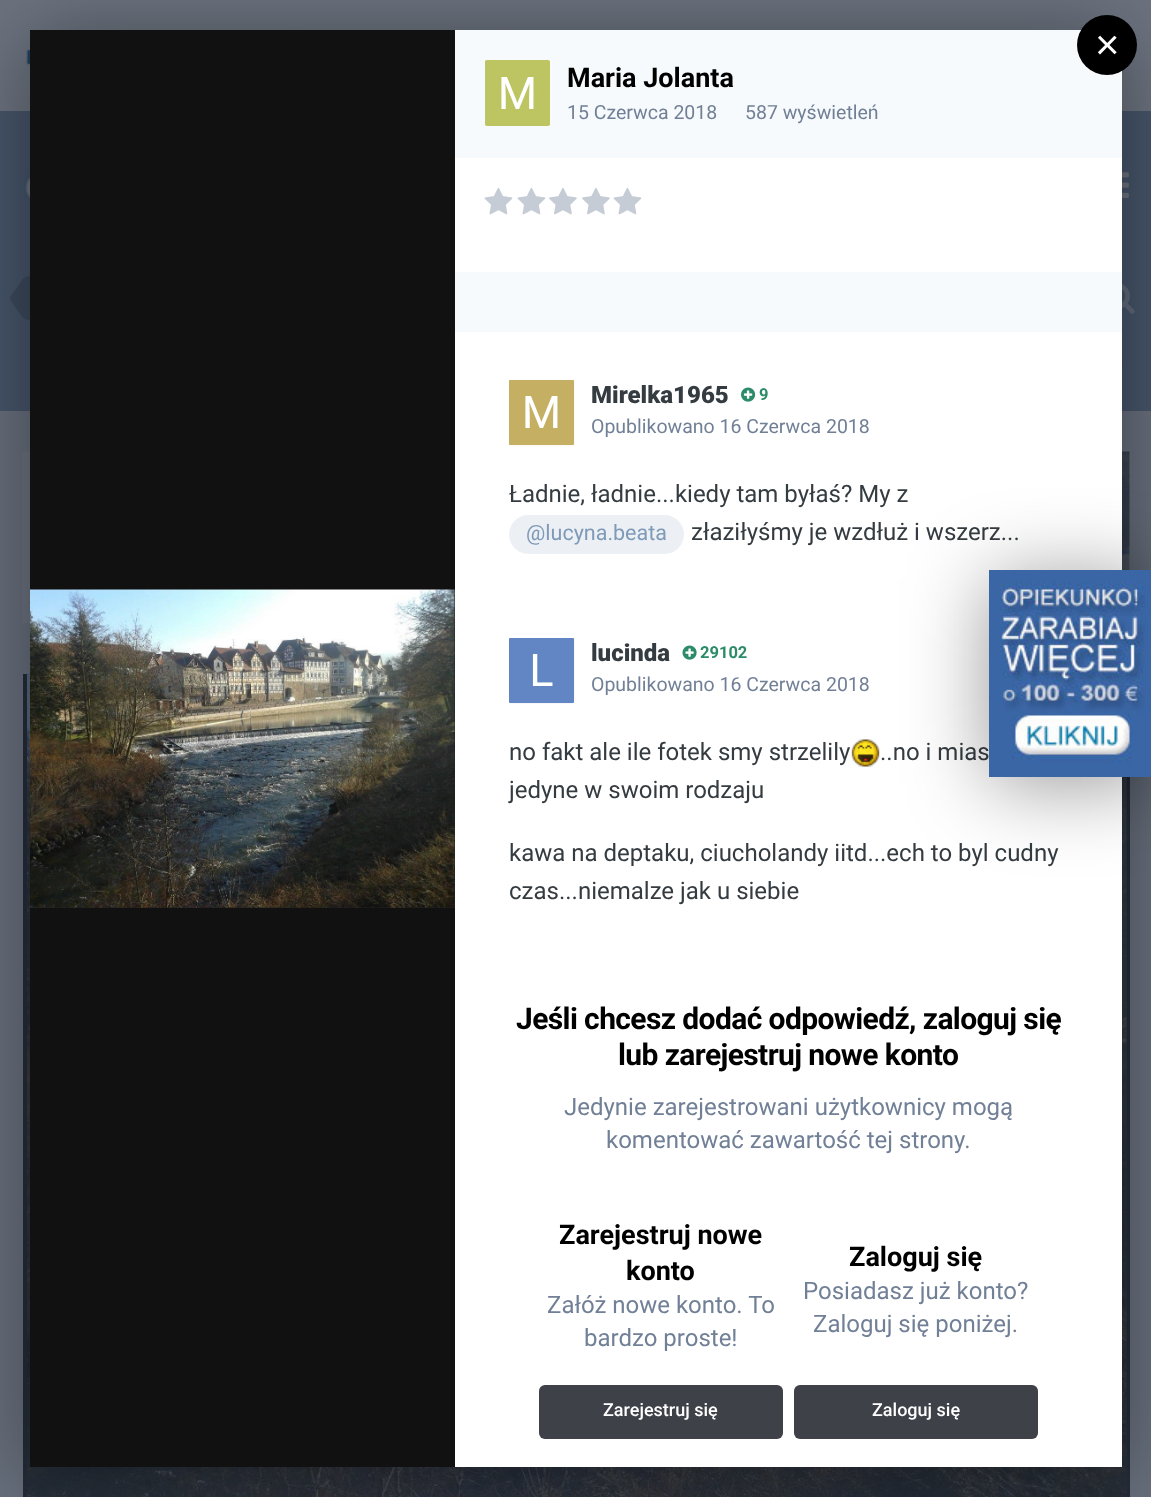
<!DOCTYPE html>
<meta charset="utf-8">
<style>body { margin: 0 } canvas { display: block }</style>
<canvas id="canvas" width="1151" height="1497"></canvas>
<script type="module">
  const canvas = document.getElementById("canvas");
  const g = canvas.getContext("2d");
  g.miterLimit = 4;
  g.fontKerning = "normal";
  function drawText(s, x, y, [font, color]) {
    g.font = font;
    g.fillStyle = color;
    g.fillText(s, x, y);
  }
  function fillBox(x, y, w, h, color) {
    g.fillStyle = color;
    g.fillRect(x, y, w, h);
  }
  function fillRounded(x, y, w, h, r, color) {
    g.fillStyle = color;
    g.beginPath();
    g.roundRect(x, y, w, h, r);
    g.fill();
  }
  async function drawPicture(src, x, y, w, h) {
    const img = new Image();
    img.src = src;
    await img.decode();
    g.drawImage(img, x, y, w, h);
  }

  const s1 = ["42px Liberation Sans", "#FFFFFF"];
  const s2 = ["bold 27px Roboto", "#000000"];
  const s3 = ["19.5px Roboto", "#718096"];
  const s4 = ["900 24px Roboto", "#353C41"];
  const s5 = ["bold 16.5px Roboto", "#2C8C69"];
  const s6 = ["24px Roboto", "#353C41"];
  const s7 = ["21.5px Roboto", "#7F9AB8"];
  const s8 = ["bold 30px Roboto", "#000000"];
  const s9 = ["24px Roboto", "#718096"];
  const s10 = ["500 18px Roboto", "#FFFFFF"];

  fillBox(0, 0, 1151, 1497, "#676F7C");
  fillBox(0, 0, 1151, 111, "#6C737F");
  await drawPicture("pic1.png", 0, 18, 1151, 75);
  fillBox(0, 111, 1151, 300, "#46556A");
  await drawPicture("pic11.png", 24, 171, 6, 34);
  await drawPicture("pic12.png", 1122, 172, 7, 26);
  g.fillStyle = "#3C495C";
  g.beginPath();
  g.moveTo(10.5, 300);
  g.lineTo(10.5, 298);
  g.lineTo(30, 298);
  g.lineTo(30, 320);
  g.bezierCurveTo(27, 320, 23.5, 318.5, 21, 315.5);
  g.closePath();
  g.moveTo(30, 276);
  g.lineTo(30, 298);
  g.lineTo(10.5, 298);
  g.lineTo(10.5, 296.5);
  g.lineTo(22.5, 279.5);
  g.bezierCurveTo(24.5, 277, 27.5, 276, 30, 276);
  g.closePath();
  g.fill();
  await drawPicture("pic13.png", 1122, 284, 13, 30);
  await drawPicture("pic14.png", 1122, 357, 1, 17);
  fillBox(23, 452, 1107, 171, "#6A727E");
  await drawPicture("pic15.png", 22, 451, 1108, 172);
  fillBox(23, 674, 1107, 823, "#252C38");
  fillBox(1126, 777, 1, 720, "#2A313D");
  await drawPicture("pic16.png", 27, 673, 1100, 824);
  g.fillStyle = "rgba(0, 0, 0, 0.4)";
  g.filter = "blur(41px)";
  g.beginPath();
  g.rect(30, 38, 1092, 1437);
  g.fill();
  g.filter = "none";
  fillBox(455, 30, 667, 128, "#F7FAFC");
  g.fillStyle = "#000000";
  g.beginPath();
  g.arc(1107, 45, 30, 0, Math.PI * 2);
  g.fill();
  drawText("×", 1095, 59, s1);
  fillBox(30, 30, 425, 1437, "#111111");
  fillBox(30, 590, 425, 318, "#222222");
  await drawPicture("pic2.png", 30, 589, 425, 319);
  fillBox(455, 158, 667, 1309, "#FFFFFF");
  fillRounded(485, 60, 66, 66, 3, "#FFFFFF");
  await drawPicture("pic3.png", 485, 60, 66, 66);
  drawText("Maria Jolanta", 567, 87, s2);
  drawText("15 Czerwca 2018", 567, 119, s3);
  drawText("587 wyświetleń", 745, 119, s3);
  await drawPicture("pic4.png", 484, 187, 29, 28);
  await drawPicture("pic4.png", 517, 187, 29, 28);
  await drawPicture("pic5.png", 549, 188, 28, 27);
  await drawPicture("pic5.png", 582, 188, 28, 27);
  await drawPicture("pic4.png", 613, 187, 29, 28);
  fillBox(455, 272, 667, 60, "#F7FAFC");
  await drawPicture("pic6.png", 509, 380, 66, 66);
  drawText("Mirelka1965", 591, 403, s4);
  await drawPicture("pic7.png", 741, 387, 15, 15);
  drawText("9", 759, 400, s5);
  drawText("Opublikowano 16 Czerwca 2018", 591, 433, s3);
  drawText("Ładnie, ładnie...kiedy tam byłaś? My z", 509, 502, s6);
  fillRounded(509, 515, 175, 39, 19.5, "#ECF0F4");
  drawText("@lucyna.beata", 526, 540, s7);
  drawText("złaziłyśmy je wzdłuż i wszerz...", 691, 540, s6);
  await drawPicture("pic8.png", 509, 638, 66, 66);
  drawText("lucinda", 591, 661, s4);
  await drawPicture("pic9.png", 682, 645, 15, 15);
  drawText("29102", 700, 658, s5);
  drawText("Opublikowano 16 Czerwca 2018", 591, 691, s3);
  drawText("no fakt ale ile fotek smy strzelily", 509, 760, s6);
  await drawPicture("pic10.png", 851, 739, 29, 28);
  drawText("..no i mias", 880, 760, s6);
  drawText("jedyne w swoim rodzaju", 509, 798, s6);
  drawText("kawa na deptaku, ciucholandy iitd...ech to byl cudny", 509, 861, s6);
  drawText("czas...niemalze jak u siebie", 509, 899, s6);
  g.letterSpacing = "-0.6px";
  drawText("Jeśli chcesz dodać odpowiedź, zaloguj się", 516, 1029, s8);
  drawText("lub zarejestruj nowe konto", 618, 1065, s8);
  g.letterSpacing = "0px";
  drawText("Jedynie zarejestrowani użytkownicy mogą", 564, 1115, s9);
  drawText("komentować zawartość tej strony.", 606, 1148, s9);
  drawText("Zarejestruj nowe", 559, 1244, s2);
  drawText("konto", 626, 1280, s2);
  drawText("Załóż nowe konto. To", 547, 1313, s9);
  drawText("bardzo proste!", 584, 1346, s9);
  fillRounded(539, 1385, 244, 54, 6, "#3E4148");
  drawText("Zarejestruj się", 603, 1416, s10);
  drawText("Zaloguj się", 849, 1266, s2);
  drawText("Posiadasz już konto?", 803, 1299, s9);
  drawText("Zaloguj się poniżej.", 813, 1332, s9);
  fillRounded(794, 1385, 244, 54, 6, "#3E4148");
  drawText("Zaloguj się", 872, 1416, s10);
  g.fillStyle = "rgba(0, 0, 0, 0.4)";
  g.filter = "blur(41px)";
  g.beginPath();
  g.roundRect(989, 578, 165, 207, 5);
  g.fill();
  g.filter = "none";
  await drawPicture("pic17.png", 989, 570, 162, 207);
</script>
